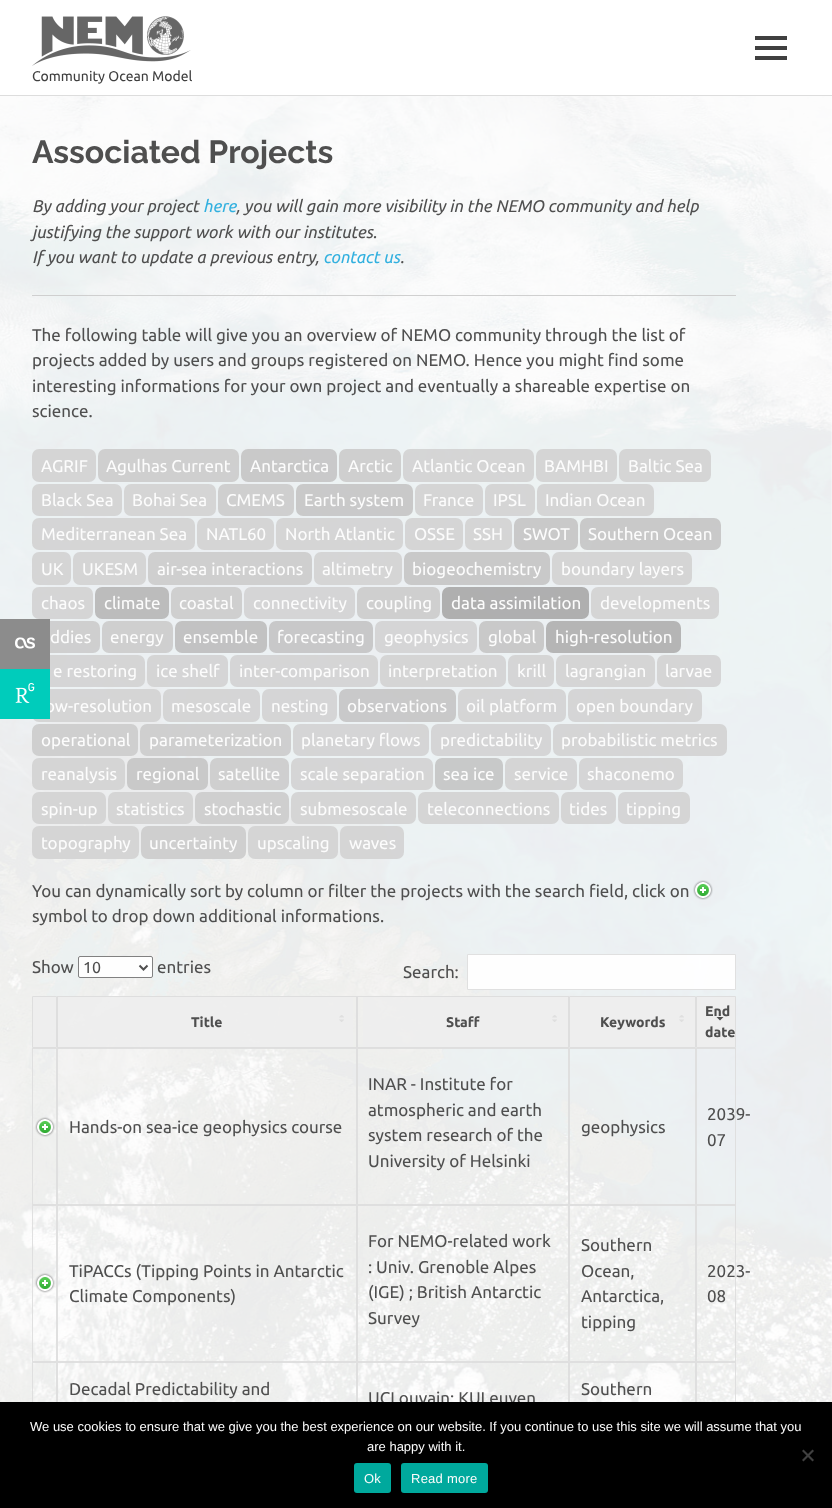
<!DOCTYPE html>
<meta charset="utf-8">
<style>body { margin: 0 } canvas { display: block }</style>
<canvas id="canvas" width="832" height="1508"></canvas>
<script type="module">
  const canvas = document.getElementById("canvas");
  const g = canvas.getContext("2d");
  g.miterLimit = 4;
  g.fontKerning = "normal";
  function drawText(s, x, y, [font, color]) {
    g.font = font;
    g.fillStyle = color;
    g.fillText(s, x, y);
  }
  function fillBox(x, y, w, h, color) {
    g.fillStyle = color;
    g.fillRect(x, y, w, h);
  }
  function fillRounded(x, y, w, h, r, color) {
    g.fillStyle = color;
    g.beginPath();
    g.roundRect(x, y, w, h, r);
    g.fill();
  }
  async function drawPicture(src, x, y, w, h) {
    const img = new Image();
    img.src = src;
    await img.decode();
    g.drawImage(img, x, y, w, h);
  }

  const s1 = ["17px Ubuntu", "#FCFCFC"];
  const s2 = ["14px Ubuntu", "#404040"];
  const s3 = ["bold 32px Raleway", "#4F4F4F"];
  const s4 = ["italic 17px Ubuntu", "#4F4F4F"];
  const s5 = ["italic 17px Ubuntu", "#32B0DF"];
  const s6 = ["17px Ubuntu", "#4F4F4F"];
  const s7 = ["16px Ubuntu", "#4F4F4F"];
  const s8 = ["bold 14px Ubuntu", "#4F4F4F"];
  const s9 = ["13px Liberation Sans", "#FCFCFC"];

  fillBox(0, 0, 832, 1508, "#FFFFFF");
  await drawPicture("pic1.png", 0, 96, 832, 1306);
  fillRounded(32, 621, 68, 32, 7, "rgba(204, 204, 204, 0.92)");
  fillRounded(32, 655, 113, 32, 7, "rgba(211, 211, 211, 0.92)");
  fillBox(0, 619, 50, 50, "#8C8C8C");
  await drawPicture("pic2.png", 15, 637, 20, 12);
  fillRounded(32, 689, 129, 33, 7, "rgba(211, 211, 211, 0.92)");
  drawText("ow-resolution", 45, 712, s1);
  fillBox(0, 669, 50, 50, "#00CCBB");
  await drawPicture("pic3.png", 15, 683, 20, 20);
  fillBox(0, 95, 832, 1, "#DDDDDD");
  await drawPicture("pic4.png", 755, 36, 32, 24);
  await drawPicture("pic5.png", 32, 16, 159, 50);
  drawText("Community Ocean Model", 32, 81, s2);
  drawText("Associated Projects", 32, 163, s3);
  drawText("By adding your project", 32, 212, s4);
  drawText("here", 203, 212, s5);
  drawText(", you will gain more visibility in the NEMO community and help", 236, 212, s4);
  drawText("justifying the support work with our institutes.", 32, 238, s4);
  drawText("If you want to update a previous entry,", 32, 263, s4);
  drawText("contact us", 323, 263, s5);
  drawText(".", 400, 263, s4);
  fillBox(32, 295, 704, 1, "rgba(204, 204, 204, 0.92)");
  drawText("The following table will give you an overview of NEMO community through the list of", 32, 341, s6);
  drawText("projects added by users and groups registered on NEMO. Hence you might find some", 32, 366, s6);
  drawText("interesting informations for your own project and eventually a shareable expertise on", 32, 392, s6);
  drawText("science.", 32, 417, s6);
  fillRounded(32, 449, 64, 33, 7, "rgba(211, 211, 211, 0.92)");
  drawText("AGRIF", 41, 472, s1);
  fillRounded(98, 449, 141, 33, 7, "rgba(204, 204, 204, 0.92)");
  drawText("Agulhas Current", 106, 472, s1);
  fillRounded(241, 449, 96, 33, 7, "rgba(197, 197, 197, 0.92)");
  drawText("Antarctica", 250, 472, s1);
  fillRounded(339, 449, 62, 33, 7, "#CFCFCF");
  drawText("Arctic", 348, 472, s1);
  fillRounded(403, 449, 131, 33, 7, "rgba(211, 211, 211, 0.92)");
  drawText("Atlantic Ocean", 412, 472, s1);
  fillRounded(536, 449, 81, 33, 7, "rgba(211, 211, 211, 0.92)");
  drawText("BAMHBI", 544, 472, s1);
  fillRounded(619, 449, 92, 33, 7, "rgba(211, 211, 211, 0.92)");
  drawText("Baltic Sea", 628, 472, s1);
  fillRounded(32, 484, 90, 32, 7, "rgba(211, 211, 211, 0.92)");
  drawText("Black Sea", 41, 506, s1);
  fillRounded(124, 484, 92, 32, 7, "rgba(211, 211, 211, 0.92)");
  drawText("Bohai Sea", 132, 506, s1);
  fillRounded(218, 484, 76, 32, 7, "rgba(204, 204, 204, 0.92)");
  drawText("CMEMS", 226, 506, s1);
  fillRounded(296, 484, 117, 32, 7, "rgba(197, 197, 197, 0.92)");
  drawText("Earth system", 304, 506, s1);
  fillRounded(415, 484, 68, 32, 7, "rgba(211, 211, 211, 0.92)");
  drawText("France", 423, 506, s1);
  fillRounded(485, 484, 50, 32, 7, "rgba(211, 211, 211, 0.92)");
  drawText("IPSL", 493, 506, s1);
  fillRounded(537, 484, 117, 32, 7, "rgba(211, 211, 211, 0.92)");
  drawText("Indian Ocean", 545, 506, s1);
  fillRounded(32, 518, 163, 32, 7, "rgba(211, 211, 211, 0.92)");
  drawText("Mediterranean Sea", 41, 540, s1);
  fillRounded(197, 518, 77, 32, 7, "rgba(211, 211, 211, 0.92)");
  drawText("NATL60", 206, 540, s1);
  fillRounded(276, 518, 127, 32, 7, "rgba(211, 211, 211, 0.92)");
  drawText("North Atlantic", 285, 540, s1);
  fillRounded(405, 518, 58, 32, 7, "rgba(211, 211, 211, 0.92)");
  drawText("OSSE", 414, 540, s1);
  fillRounded(465, 518, 47, 32, 7, "rgba(211, 211, 211, 0.92)");
  drawText("SSH", 473, 540, s1);
  fillRounded(514, 518, 64, 32, 7, "rgba(197, 197, 197, 0.92)");
  drawText("SWOT", 523, 540, s1);
  fillRounded(580, 518, 141, 32, 7, "rgba(197, 197, 197, 0.92)");
  drawText("Southern Ocean", 588, 540, s1);
  fillRounded(32, 552, 39, 33, 7, "rgba(211, 211, 211, 0.92)");
  drawText("UK", 41, 575, s1);
  fillRounded(73, 552, 73, 33, 7, "rgba(211, 211, 211, 0.92)");
  drawText("UKESM", 82, 575, s1);
  fillRounded(148, 552, 164, 33, 7, "rgba(204, 204, 204, 0.92)");
  drawText("air-sea interactions", 157, 575, s1);
  fillRounded(314, 552, 88, 33, 7, "rgba(211, 211, 211, 0.92)");
  drawText("altimetry", 322, 575, s1);
  fillRounded(404, 552, 146, 33, 7, "rgba(197, 197, 197, 0.92)");
  drawText("biogeochemistry", 412, 575, s1);
  fillRounded(552, 552, 140, 33, 7, "rgba(211, 211, 211, 0.92)");
  drawText("boundary layers", 561, 575, s1);
  fillRounded(32, 587, 61, 32, 7, "rgba(211, 211, 211, 0.92)");
  drawText("chaos", 41, 609, s1);
  fillRounded(95, 587, 74, 32, 7, "rgba(183, 183, 183, 0.92)");
  drawText("climate", 104, 609, s1);
  fillRounded(171, 587, 71, 32, 7, "#CFCFCF");
  drawText("coastal", 179, 609, s1);
  fillRounded(244, 587, 111, 32, 7, "#D5D5D6");
  drawText("connectivity", 253, 609, s1);
  fillRounded(357, 587, 83, 32, 7, "#CFCFCF");
  drawText("coupling", 366, 609, s1);
  fillRounded(442, 587, 147, 32, 7, "rgba(169, 169, 169, 0.92)");
  drawText("data assimilation", 451, 609, s1);
  fillRounded(591, 587, 128, 32, 7, "rgba(211, 211, 211, 0.92)");
  drawText("developments", 600, 609, s1);
  drawText("ddies", 50, 643, s1);
  fillRounded(102, 621, 71, 32, 7, "rgba(204, 204, 204, 0.92)");
  drawText("energy", 110, 643, s1);
  fillRounded(175, 621, 92, 32, 7, "rgba(190, 190, 190, 0.92)");
  drawText("ensemble", 183, 643, s1);
  fillRounded(269, 621, 104, 32, 7, "#C8C8C9");
  drawText("forecasting", 277, 643, s1);
  fillRounded(375, 621, 102, 32, 7, "#D5D5D6");
  drawText("geophysics", 384, 643, s1);
  fillRounded(479, 621, 65, 32, 7, "rgba(197, 197, 197, 0.92)");
  drawText("global", 488, 643, s1);
  fillRounded(546, 621, 135, 32, 7, "rgba(176, 176, 176, 0.92)");
  drawText("high-resolution", 555, 643, s1);
  drawText("e restoring", 53, 677, s1);
  fillRounded(147, 655, 81, 32, 7, "rgba(211, 211, 211, 0.92)");
  drawText("ice shelf", 156, 677, s1);
  fillRounded(230, 655, 148, 32, 7, "rgba(211, 211, 211, 0.92)");
  drawText("inter-comparison", 239, 677, s1);
  fillRounded(380, 655, 126, 32, 7, "rgba(211, 211, 211, 0.92)");
  drawText("interpretation", 388, 677, s1);
  fillRounded(508, 655, 46, 32, 7, "rgba(211, 211, 211, 0.92)");
  drawText("krill", 517, 677, s1);
  fillRounded(556, 655, 99, 32, 7, "rgba(211, 211, 211, 0.92)");
  drawText("lagrangian", 565, 677, s1);
  fillRounded(657, 655, 64, 32, 7, "rgba(211, 211, 211, 0.92)");
  drawText("larvae", 665, 677, s1);
  fillRounded(163, 689, 97, 33, 7, "rgba(211, 211, 211, 0.92)");
  drawText("mesoscale", 171, 712, s1);
  fillRounded(262, 689, 75, 33, 7, "rgba(211, 211, 211, 0.92)");
  drawText("nesting", 271, 712, s1);
  fillRounded(339, 689, 117, 33, 7, "rgba(197, 197, 197, 0.92)");
  drawText("observations", 347, 712, s1);
  fillRounded(458, 689, 108, 33, 7, "rgba(211, 211, 211, 0.92)");
  drawText("oil platform", 466, 712, s1);
  fillRounded(568, 689, 134, 33, 7, "rgba(211, 211, 211, 0.92)");
  drawText("open boundary", 576, 712, s1);
  fillRounded(32, 724, 106, 32, 7, "rgba(204, 204, 204, 0.92)");
  drawText("operational", 41, 746, s1);
  fillRounded(140, 724, 151, 32, 7, "rgba(204, 204, 204, 0.92)");
  drawText("parameterization", 149, 746, s1);
  fillRounded(293, 724, 136, 32, 7, "rgba(211, 211, 211, 0.92)");
  drawText("planetary flows", 301, 746, s1);
  fillRounded(431, 724, 120, 32, 7, "#D5D5D6");
  drawText("predictability", 440, 746, s1);
  fillRounded(553, 724, 174, 32, 7, "rgba(211, 211, 211, 0.92)");
  drawText("probabilistic metrics", 561, 746, s1);
  fillRounded(32, 758, 93, 32, 7, "rgba(211, 211, 211, 0.92)");
  drawText("reanalysis", 41, 780, s1);
  fillRounded(127, 758, 81, 32, 7, "rgba(197, 197, 197, 0.92)");
  drawText("regional", 136, 780, s1);
  fillRounded(210, 758, 79, 32, 7, "rgba(204, 204, 204, 0.92)");
  drawText("satellite", 218, 780, s1);
  fillRounded(291, 758, 142, 32, 7, "rgba(211, 211, 211, 0.92)");
  drawText("scale separation", 300, 780, s1);
  fillRounded(435, 758, 68, 32, 7, "#C8C9C9");
  drawText("sea ice", 443, 780, s1);
  fillRounded(505, 758, 72, 32, 7, "rgba(211, 211, 211, 0.92)");
  drawText("service", 514, 780, s1);
  fillRounded(579, 758, 104, 32, 7, "rgba(211, 211, 211, 0.92)");
  drawText("shaconemo", 587, 780, s1);
  fillRounded(32, 792, 74, 32, 7, "rgba(211, 211, 211, 0.92)");
  drawText("spin-up", 41, 815, s1);
  fillRounded(108, 792, 85, 32, 7, "rgba(211, 211, 211, 0.92)");
  drawText("statistics", 116, 815, s1);
  fillRounded(195, 792, 94, 32, 7, "rgba(204, 204, 204, 0.92)");
  drawText("stochastic", 204, 815, s1);
  fillRounded(291, 792, 125, 32, 7, "rgba(211, 211, 211, 0.92)");
  drawText("submesoscale", 300, 815, s1);
  fillRounded(418, 792, 141, 32, 7, "rgba(211, 211, 211, 0.92)");
  drawText("teleconnections", 427, 815, s1);
  fillRounded(561, 792, 55, 32, 7, "rgba(211, 211, 211, 0.92)");
  drawText("tides", 569, 815, s1);
  fillRounded(618, 792, 72, 32, 7, "rgba(211, 211, 211, 0.92)");
  drawText("tipping", 626, 815, s1);
  fillRounded(32, 826, 107, 33, 7, "rgba(211, 211, 211, 0.92)");
  drawText("topography", 41, 849, s1);
  fillRounded(141, 826, 105, 33, 7, "rgba(204, 204, 204, 0.92)");
  drawText("uncertainty", 149, 849, s1);
  fillRounded(248, 826, 90, 33, 7, "rgba(211, 211, 211, 0.92)");
  drawText("upscaling", 257, 849, s1);
  fillRounded(340, 826, 64, 33, 7, "rgba(211, 211, 211, 0.92)");
  drawText("waves", 349, 849, s1);
  drawText("You can dynamically sort by column or filter the projects with the search field, click on", 32, 897, s6);
  await drawPicture("pic6.png", 693, 880, 20, 20);
  drawText("symbol to drop down additional informations.", 32, 922, s6);
  drawText("Show", 32, 973, s6);
  fillRounded(78, 956, 75, 22, 2, "rgba(255, 255, 255, 0.92)");
  g.beginPath();
  g.roundRect(78.5, 956.5, 74, 21, 1.5);
  g.strokeStyle = "rgba(118, 118, 118, 0.92)";
  g.stroke();
  g.beginPath();
  g.moveTo(139.5, 965.5);
  g.lineTo(143.5, 969.5);
  g.lineTo(147.5, 965.5);
  g.strokeStyle = "#4F4F4F";
  g.lineWidth = 2;
  g.stroke();
  drawText("10", 83, 973, s7);
  drawText("entries", 157, 973, s6);
  drawText("Search:", 403, 978, s6);
  g.fillStyle = "rgba(255, 255, 255, 0.92)";
  g.beginPath();
  g.rect(467.5, 954.5, 268, 35);
  g.fill();
  g.strokeStyle = "#E0E0E0";
  g.lineWidth = 1;
  g.stroke();
  g.fillStyle = "rgba(238, 238, 238, 0.92)";
  g.beginPath();
  g.rect(32.5, 996.5, 24, 51);
  g.fill();
  g.strokeStyle = "#DEDEDE";
  g.stroke();
  fillBox(58, 997, 295, 50, "rgba(238, 238, 238, 0.92)");
  g.strokeRect(57.5, 996.5, 299, 51);
  drawText("Title", 191, 1027, s8);
  await drawPicture("pic7.png", 339, 1015, 5, 7);
  fillBox(363, 997, 205, 50, "rgba(238, 238, 238, 0.92)");
  g.strokeRect(357.5, 996.5, 211, 51);
  drawText("Staff", 446, 1027, s8);
  await drawPicture("pic8.png", 552, 1015, 5, 7);
  g.fillStyle = "rgba(238, 238, 238, 0.92)";
  g.beginPath();
  g.rect(569.5, 996.5, 126, 51);
  g.fill();
  g.stroke();
  drawText("Keywords", 600, 1027, s8);
  await drawPicture("pic8.png", 679, 1015, 5, 7);
  g.fillStyle = "rgba(238, 238, 238, 0.92)";
  g.beginPath();
  g.rect(696.5, 996.5, 39, 51);
  g.fill();
  g.stroke();
  drawText("End", 705, 1016, s8);
  g.fillStyle = "#4E4E4E";
  g.beginPath();
  g.moveTo(716.5, 1017);
  g.lineTo(723.5, 1017);
  g.lineTo(720, 1020.5);
  g.closePath();
  g.fill();
  drawText("date", 705, 1037, s8);
  await drawPicture("pic9.png", 35, 1117, 20, 20);
  g.strokeStyle = "rgba(221, 221, 221, 0.92)";
  g.strokeRect(32.5, 1048.5, 24, 156);
  g.strokeRect(57.5, 1048.5, 299, 156);
  drawText("Hands-on sea-ice geophysics course", 69, 1133, s6);
  g.strokeRect(357.5, 1048.5, 211, 156);
  drawText("INAR - Institute for", 368, 1090, s6);
  drawText("atmospheric and earth", 368, 1116, s6);
  drawText("system research of the", 368, 1141, s6);
  drawText("University of Helsinki", 368, 1167, s6);
  g.strokeRect(569.5, 1048.5, 126, 156);
  drawText("geophysics", 581, 1133, s6);
  g.strokeRect(696.5, 1048.5, 39, 156);
  drawText("2039-", 707, 1120, s6);
  drawText("07", 707, 1146, s6);
  await drawPicture("pic10.png", 35, 1273, 20, 20);
  g.strokeRect(32.5, 1205.5, 24, 156);
  g.strokeRect(57.5, 1205.5, 299, 156);
  drawText("TiPACCs (Tipping Points in Antarctic", 69, 1277, s6);
  drawText("Climate Components)", 69, 1302, s6);
  g.strokeRect(357.5, 1205.5, 211, 156);
  drawText("For NEMO-related work", 368, 1247, s6);
  drawText(": Univ. Grenoble Alpes", 368, 1273, s6);
  drawText("(IGE) ; British Antarctic", 368, 1298, s6);
  drawText("Survey", 368, 1324, s6);
  g.strokeRect(569.5, 1205.5, 126, 156);
  drawText("Southern", 581, 1251, s6);
  drawText("Ocean,", 581, 1277, s6);
  drawText("Antarctica,", 581, 1302, s6);
  drawText("tipping", 581, 1328, s6);
  g.strokeRect(696.5, 1205.5, 39, 156);
  drawText("2023-", 707, 1277, s6);
  drawText("08", 707, 1302, s6);
  g.strokeRect(32.5, 1362.5, 24, 104);
  g.strokeRect(57.5, 1362.5, 299, 104);
  drawText("Decadal Predictability and", 69, 1395, s6);
  g.strokeRect(569.5, 1362.5, 126, 104);
  drawText("Southern", 581, 1395, s6);
  g.strokeRect(696.5, 1362.5, 39, 104);
  g.strokeRect(357.5, 1362.5, 211, 104);
  drawText("UCLouvain; KULeuven", 368, 1404, s6);
  fillBox(0, 1402, 832, 106, "#000000");
  drawText("We use cookies to ensure that we give you the best experience on our website. If you continue to use this site we will assume that you", 30, 1431, s9);
  drawText("are happy with it.", 367, 1451, s9);
  g.fillStyle = "#404040";
  g.beginPath();
  g.moveTo(812.5, 1449.5);
  g.lineTo(814, 1451);
  g.lineTo(803.5, 1461.5);
  g.lineTo(802, 1460);
  g.closePath();
  g.fill();
  g.beginPath();
  g.moveTo(802, 1451);
  g.lineTo(803.5, 1449.5);
  g.lineTo(814, 1460);
  g.lineTo(812.5, 1461.5);
  g.closePath();
  g.fill();
  fillRounded(354, 1463, 37, 30, 3, "#00A99D");
  g.letterSpacing = "0.25px";
  drawText("Ok", 364, 1483, s9);
  fillRounded(401, 1463, 87, 30, 3, "#00A99D");
  drawText("Read more", 411, 1483, s9);
</script>
